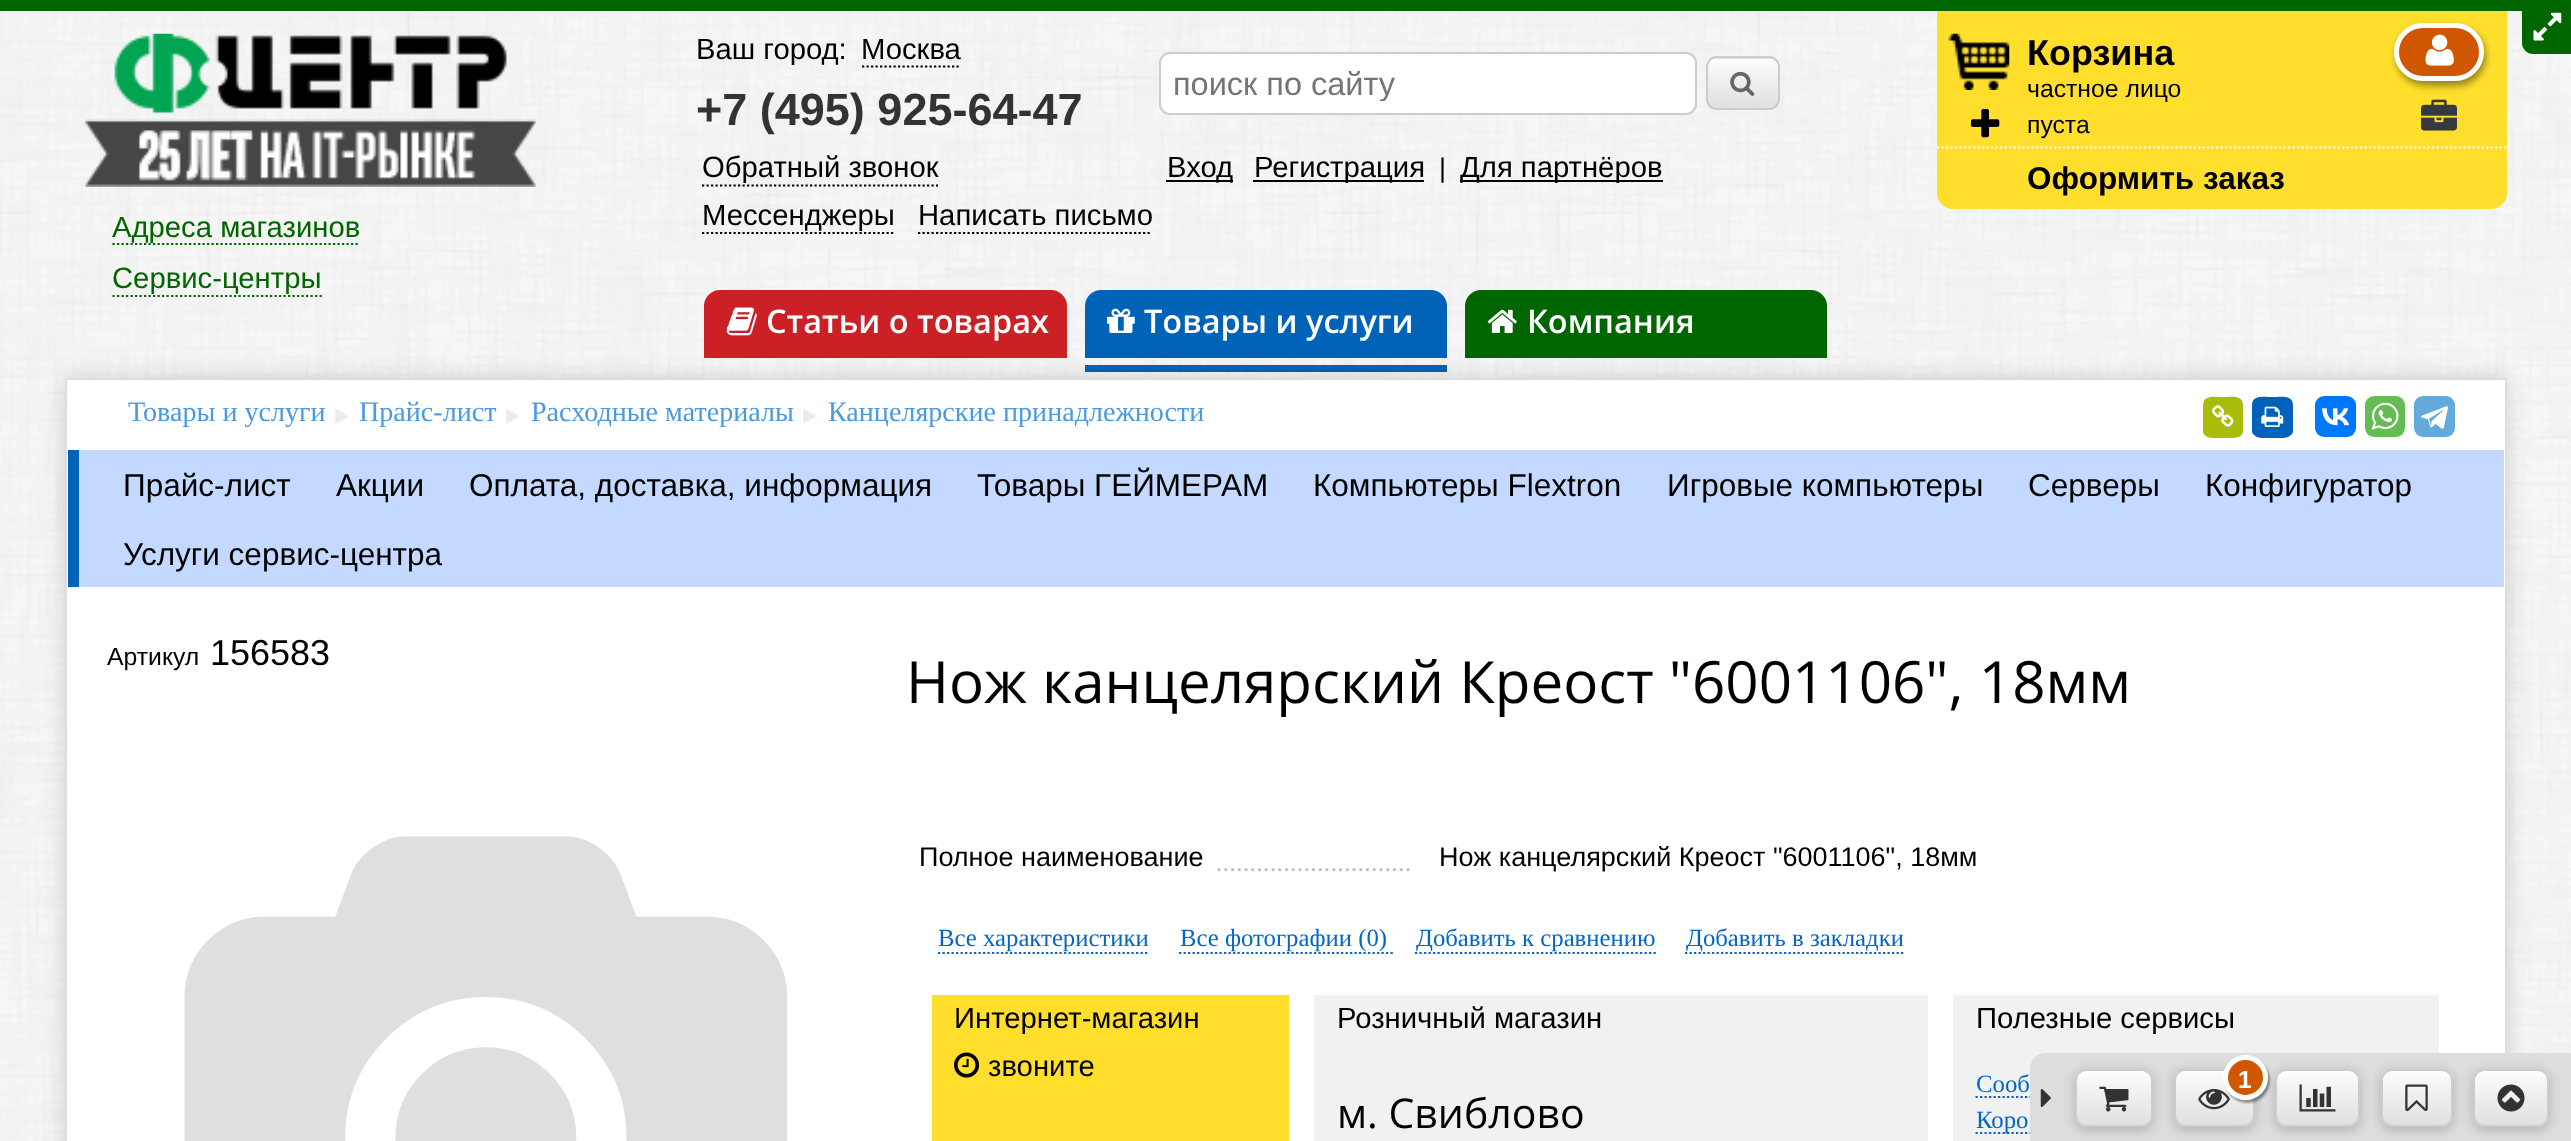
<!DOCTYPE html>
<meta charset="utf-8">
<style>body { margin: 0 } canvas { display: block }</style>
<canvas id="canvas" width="2571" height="1141"></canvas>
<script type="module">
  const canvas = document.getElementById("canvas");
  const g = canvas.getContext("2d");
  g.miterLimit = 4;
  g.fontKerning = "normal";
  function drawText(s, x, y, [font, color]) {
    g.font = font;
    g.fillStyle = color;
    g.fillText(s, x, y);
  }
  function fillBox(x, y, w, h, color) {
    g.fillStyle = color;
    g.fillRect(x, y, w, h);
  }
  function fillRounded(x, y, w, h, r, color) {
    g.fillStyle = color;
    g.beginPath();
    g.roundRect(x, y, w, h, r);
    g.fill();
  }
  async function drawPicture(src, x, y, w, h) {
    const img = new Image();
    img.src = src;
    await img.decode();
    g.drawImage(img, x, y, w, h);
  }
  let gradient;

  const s1 = ["29.25px Liberation Sans", "#000000"];
  const s2 = ["bold 45px Liberation Sans", "#333333"];
  const s3 = ["32.5px Liberation Sans", "#757575"];
  const s4 = ["27px Liberation Sans", "#000000"];
  const s5 = ["600 32.5px Open Sans", "#FFFFFF"];
  const s6 = ["bold 36px Liberation Sans", "#000000"];
  const s7 = ["24.75px Liberation Sans", "#000000"];
  const s8 = ["bold 31.5px Liberation Sans", "#000000"];
  const s9 = ["29.25px Liberation Sans", "#006600"];
  const s10 = ["28.1px Liberation Serif", "#4D99E0"];
  const s11 = ["31.5px Liberation Sans", "#000000"];
  const s12 = ["36px Liberation Sans", "#000000"];
  const s13 = ["58.3px Open Sans", "#000000"];
  const s14 = ["24.75px Liberation Serif", "#0066CC"];
  const s15 = ["41px Open Sans", "#000000"];
  const s16 = ["bold 24.75px Liberation Sans", "#FFFFFF"];

  fillBox(0, 0, 2571, 1141, "#FFFFFF");
  await drawPicture("pic1.png", 0, 11, 2571, 1130);
  fillBox(0, 0, 2571, 11, "#006600");
  g.beginPath();
  g.moveTo(2522, 5);
  g.lineTo(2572, 5);
  g.lineTo(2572, 54);
  g.lineTo(2533, 54);
  g.bezierCurveTo(2527, 54, 2522, 49, 2522, 43);
  g.closePath();
  g.fill();
  await drawPicture("pic2.png", 2533, 12, 29, 29);
  drawText("Ваш город:", 696, 59, s1);
  drawText("Москва", 861, 59, s1);
  g.beginPath();
  g.moveTo(862, 66.5);
  g.lineTo(961, 66.5);
  g.strokeStyle = "#000000";
  g.lineWidth = 2.2;
  g.setLineDash([2.25, 2.25]);
  g.stroke();
  drawText("+7 (495) 925-64-47", 696, 125, s2);
  g.fillStyle = "#FFFFFF";
  g.beginPath();
  g.roundRect(1160, 53, 536, 61, 10);
  g.fill();
  g.strokeStyle = "#CCCCCC";
  g.lineWidth = 2;
  g.setLineDash([]);
  g.stroke();
  g.save();
  g.beginPath();
  g.rect(1161, 65, 533, 36);
  g.clip();
  drawText("поиск по сайту", 1173, 95, s3);
  g.restore();
  g.save();
  g.beginPath();
  g.roundRect(1706, 56, 74, 54, 11);
  g.clip();
  gradient = g.createLinearGradient(1743, 9, 1743, 59);
  gradient.addColorStop(0, "#FCFCFC");
  gradient.addColorStop(1, "#E0E0E0");
  g.fillStyle = gradient;
  g.fillRect(1706, 56, 74, 3);
  gradient = g.createLinearGradient(1743, 59, 1743, 108);
  gradient.addColorStop(0, "#FCFCFC");
  gradient.addColorStop(1, "#E0E0E0");
  g.fillStyle = gradient;
  g.fillRect(1706, 59, 74, 49);
  g.restore();
  g.beginPath();
  g.roundRect(1707, 57, 72, 52, 10);
  g.stroke();
  await drawPicture("pic3.png", 1730, 71, 25, 25);
  drawText("Обратный звонок", 702, 177, s1);
  g.beginPath();
  g.moveTo(702, 185.5);
  g.lineTo(938, 185.5);
  g.strokeStyle = "#000000";
  g.lineWidth = 2.2;
  g.setLineDash([2.25, 2.25]);
  g.stroke();
  g.beginPath();
  g.moveTo(702, 233);
  g.lineTo(895.5, 233);
  g.stroke();
  drawText("Мессенджеры", 702, 225, s1);
  drawText("Написать письмо", 918, 225, s1);
  g.beginPath();
  g.moveTo(918, 233);
  g.lineTo(1152, 233);
  g.stroke();
  fillBox(1166, 180, 67, 2, "#000000");
  drawText("Вход", 1167, 177, s1);
  fillBox(1253, 180, 171, 2, "#000000");
  drawText("Регистрация", 1254, 177, s1);
  drawText("|", 1439, 177, s4);
  fillBox(1460, 180, 203, 2, "#000000");
  drawText("Для партнёров", 1460, 177, s1);
  g.fillStyle = "#CB2026";
  g.beginPath();
  g.roundRect(704, 290, 363, 68, [16, 16, 0, 0]);
  g.fill();
  await drawPicture("pic4.png", 726, 307, 31, 29);
  drawText("Статьи о товарах", 766, 333, s5);
  fillBox(1085, 365, 362, 7, "#0063B7");
  g.beginPath();
  g.roundRect(1085, 290, 362, 68, [16, 16, 0, 0]);
  g.fill();
  await drawPicture("pic5.png", 1107, 308, 28, 25);
  drawText("Товары и услуги", 1144, 333, s5);
  g.fillStyle = "#006600";
  g.beginPath();
  g.roundRect(1465, 290, 362, 68, [16, 16, 0, 0]);
  g.fill();
  await drawPicture("pic6.png", 1487, 309, 30, 24);
  drawText("Компания", 1527, 333, s5);
  g.fillStyle = "#FFDF2C";
  g.beginPath();
  g.roundRect(1937, 11, 570, 198, [0, 0, 16, 16]);
  g.fill();
  await drawPicture("pic7.png", 1948, 33, 62, 57);
  drawText("Корзина", 2027, 65, s6);
  drawText("частное лицо", 2027, 97, s7);
  g.fillStyle = "rgba(0, 0, 0, 0.4)";
  g.filter = "blur(3.5px)";
  g.beginPath();
  g.roundRect(2396, 27, 90, 59, 29.5);
  g.fill();
  g.filter = "none";
  g.fillStyle = "#D15600";
  g.beginPath();
  g.roundRect(2396.5, 25.5, 85, 53, 26.5);
  g.fill();
  g.strokeStyle = "#FFFFFF";
  g.lineWidth = 5;
  g.setLineDash([]);
  g.stroke();
  await drawPicture("pic8.png", 2425, 34, 29, 32);
  await drawPicture("pic9.png", 2421, 99, 36, 32);
  await drawPicture("pic10.png", 1971, 108, 29, 30);
  drawText("пуста", 2027, 133, s7);
  g.beginPath();
  g.moveTo(1937, 147.5);
  g.lineTo(2506.5, 147.5);
  g.lineWidth = 2.2;
  g.setLineDash([2.25, 2.25]);
  g.stroke();
  drawText("Оформить заказ", 2027, 189, s8);
  await drawPicture("pic11.png", 85, 33, 451, 154);
  g.beginPath();
  g.moveTo(112.5, 244);
  g.lineTo(360, 244);
  g.strokeStyle = "#006600";
  g.stroke();
  drawText("Адреса магазинов", 112, 237, s9);
  g.beginPath();
  g.moveTo(112.5, 296);
  g.lineTo(322, 296);
  g.stroke();
  drawText("Сервис-центры", 112, 288, s9);
  g.fillStyle = "rgba(0, 0, 0, 0.15)";
  g.filter = "blur(11px)";
  g.beginPath();
  g.rect(65, 378, 2442, 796);
  g.fill();
  g.filter = "none";
  g.fillStyle = "#FFFFFF";
  g.beginPath();
  g.rect(66, 379, 2440, 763);
  g.fill();
  g.strokeStyle = "#DDDDDD";
  g.lineWidth = 2;
  g.setLineDash([]);
  g.stroke();
  await drawPicture("pic12.png", 335, 409, 14, 15);
  drawText("Товары и услуги", 128, 421, s10);
  await drawPicture("pic13.png", 506, 409, 14, 15);
  drawText("Прайс-лист", 359, 421, s10);
  await drawPicture("pic14.png", 803, 409, 14, 15);
  drawText("Расходные материалы", 531, 421, s10);
  drawText("Канцелярские принадлежности", 828, 421, s10);
  g.fillStyle = "#A7BD09";
  g.beginPath();
  g.moveTo(2243, 405);
  g.lineTo(2243, 432);
  g.bezierCurveTo(2242, 437, 2236, 438, 2231, 438);
  g.lineTo(2215, 438);
  g.bezierCurveTo(2210, 438, 2204, 437, 2203, 432);
  g.lineTo(2203, 405);
  g.bezierCurveTo(2203, 394, 2217, 397, 2223, 397);
  g.bezierCurveTo(2229, 397, 2243, 394, 2243, 405);
  g.closePath();
  g.fill();
  await drawPicture("pic15.png", 2212, 405, 22, 22);
  g.fillStyle = "#0062BB";
  g.beginPath();
  g.moveTo(2293, 405);
  g.lineTo(2293, 432);
  g.bezierCurveTo(2291, 437, 2286, 438, 2281, 438);
  g.lineTo(2264, 438);
  g.bezierCurveTo(2259, 438, 2254, 437, 2252, 432);
  g.lineTo(2252, 405);
  g.bezierCurveTo(2252, 394, 2266, 397, 2272, 397);
  g.bezierCurveTo(2279, 397, 2293, 394, 2293, 405);
  g.closePath();
  g.fill();
  await drawPicture("pic16.png", 2261, 406, 23, 21);
  fillRounded(2315, 396, 41, 41, 9, "#0077FF");
  await drawPicture("pic17.png", 2322, 408, 27, 18);
  fillRounded(2365, 396, 40, 41, 9, "#65BC54");
  await drawPicture("pic18.png", 2371, 402, 28, 28);
  fillRounded(2414, 396, 41, 41, 9, "#64A9DC");
  await drawPicture("pic19.png", 2421, 406, 27, 23);
  fillBox(79, 450, 2425, 137, "#C3D9FF");
  fillBox(68, 450, 11, 137, "#0063B7");
  drawText("Прайс-лист", 123, 496, s11);
  drawText("Акции", 336, 496, s11);
  drawText("Оплата, доставка, информация", 469, 496, s11);
  drawText("Товары ГЕЙМЕРАМ", 977, 496, s11);
  drawText("Компьютеры Flextron", 1313, 496, s11);
  drawText("Игровые компьютеры", 1667, 496, s11);
  drawText("Серверы", 2028, 496, s11);
  drawText("Конфигуратор", 2205, 496, s11);
  drawText("Услуги сервис-центра", 123, 565, s11);
  drawText("Артикул", 107, 665, s7);
  drawText("156583", 210, 665, s12);
  drawText("Нож канцелярский Креост \"6001106\", 18мм", 906, 703, s13);
  await drawPicture("pic20.png", 184, 836, 604, 305);
  await drawPicture("pic21.png", 1215, 868, 195, 4);
  drawText("Полное наименование", 919, 866, s4);
  drawText("Нож канцелярский Креост \"6001106\", 18мм", 1439, 866, s4);
  g.beginPath();
  g.moveTo(938, 953);
  g.lineTo(1147.5, 953);
  g.strokeStyle = "#0066CC";
  g.lineWidth = 2.2;
  g.setLineDash([2.25, 2.25]);
  g.stroke();
  drawText("Все характеристики", 938, 946, s14);
  g.beginPath();
  g.moveTo(1179, 953);
  g.lineTo(1393, 953);
  g.stroke();
  drawText("Все фотографии (0)", 1180, 946, s14);
  g.beginPath();
  g.moveTo(1415, 953);
  g.lineTo(1656, 953);
  g.stroke();
  drawText("Добавить к сравнению", 1416, 946, s14);
  g.beginPath();
  g.moveTo(1685, 953);
  g.lineTo(1903.5, 953);
  g.stroke();
  drawText("Добавить в закладки", 1686, 946, s14);
  fillBox(932, 995, 357, 146, "#FFDF2C");
  drawText("Интернет-магазин", 954, 1028, s1);
  await drawPicture("pic22.png", 954, 1052, 26, 26);
  drawText("звоните", 988, 1076, s1);
  fillBox(1314, 995, 614, 146, "#F1F1F1");
  drawText("Розничный магазин", 1337, 1028, s1);
  drawText("м. Свиблово", 1337, 1128, s15);
  fillBox(1953, 995, 486, 146, "#F1F1F1");
  drawText("Полезные сервисы", 1976, 1028, s1);
  drawText("Сооб", 1976, 1092, s14);
  g.beginPath();
  g.moveTo(1975.5, 1097);
  g.lineTo(2230, 1097);
  g.stroke();
  g.beginPath();
  g.moveTo(1975.5, 1133);
  g.lineTo(2153, 1133);
  g.stroke();
  drawText("Коро", 1976, 1128, s14);
  g.fillStyle = "#DDDDDD";
  g.beginPath();
  g.moveTo(2046, 1053);
  g.lineTo(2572, 1053);
  g.lineTo(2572, 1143);
  g.lineTo(2030, 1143);
  g.lineTo(2030, 1069);
  g.bezierCurveTo(2030, 1060, 2037, 1053, 2046, 1053);
  g.closePath();
  g.fill();
  g.fillStyle = "rgba(0, 0, 0, 0.2)";
  g.filter = "blur(5.5px)";
  g.beginPath();
  g.roundRect(2075, 1071, 78, 59, 11);
  g.fill();
  g.filter = "none";
  g.save();
  g.beginPath();
  g.roundRect(2075, 1069, 78, 58, 11);
  g.clip();
  gradient = g.createLinearGradient(2114, 1071, 2114, 1125);
  gradient.addColorStop(0, "#FCFCFC");
  gradient.addColorStop(1, "#E0E0E0");
  g.fillStyle = gradient;
  g.fillRect(2075, 1071, 78, 54);
  g.restore();
  g.beginPath();
  g.roundRect(2076, 1070, 76, 56, 10);
  g.strokeStyle = "#CCCCCC";
  g.lineWidth = 2;
  g.setLineDash([]);
  g.stroke();
  await drawPicture("pic23.png", 2099, 1086, 30, 26);
  g.filter = "blur(5.5px)";
  g.beginPath();
  g.roundRect(2174, 1071, 81, 59, 11);
  g.fill();
  g.filter = "none";
  g.save();
  g.beginPath();
  g.roundRect(2174, 1069, 81, 58, 11);
  g.clip();
  gradient = g.createLinearGradient(2214, 1071, 2214, 1125);
  gradient.addColorStop(0, "#FCFCFC");
  gradient.addColorStop(1, "#E0E0E0");
  g.fillStyle = gradient;
  g.fillRect(2174, 1071, 81, 54);
  g.restore();
  g.beginPath();
  g.roundRect(2175, 1070, 79, 56, 10);
  g.stroke();
  await drawPicture("pic24.png", 2198, 1089, 32, 21);
  g.fillStyle = "rgba(0, 0, 0, 0.4)";
  g.filter = "blur(1px)";
  g.beginPath();
  g.roundRect(2225, 1058, 45, 45, 22.5);
  g.fill();
  g.filter = "none";
  g.fillStyle = "rgba(0, 0, 0, 0.2)";
  g.filter = "blur(5.5px)";
  g.beginPath();
  g.roundRect(2275, 1071, 85, 59, 11);
  g.fill();
  g.filter = "none";
  g.fillStyle = "#D15600";
  g.beginPath();
  g.arc(2245.5, 1077.5, 20, 0, Math.PI * 2);
  g.fill();
  g.strokeStyle = "#FFFFFF";
  g.lineWidth = 5;
  g.stroke();
  drawText("1", 2238, 1088, s16);
  g.save();
  g.beginPath();
  g.roundRect(2275, 1069, 85, 58, 11);
  g.clip();
  gradient = g.createLinearGradient(2318, 1071, 2318, 1125);
  gradient.addColorStop(0, "#FCFCFC");
  gradient.addColorStop(1, "#E0E0E0");
  g.fillStyle = gradient;
  g.fillRect(2275, 1071, 85, 54);
  g.restore();
  g.beginPath();
  g.roundRect(2276, 1070, 83, 56, 10);
  g.strokeStyle = "#CCCCCC";
  g.lineWidth = 2;
  g.stroke();
  await drawPicture("pic25.png", 2299, 1084, 37, 28);
  g.fillStyle = "rgba(0, 0, 0, 0.2)";
  g.filter = "blur(5.5px)";
  g.beginPath();
  g.roundRect(2381, 1071, 72, 59, 11);
  g.fill();
  g.filter = "none";
  g.save();
  g.beginPath();
  g.roundRect(2381, 1069, 72, 58, 11);
  g.clip();
  gradient = g.createLinearGradient(2417, 1071, 2417, 1125);
  gradient.addColorStop(0, "#FCFCFC");
  gradient.addColorStop(1, "#E0E0E0");
  g.fillStyle = gradient;
  g.fillRect(2381, 1071, 72, 54);
  g.restore();
  g.beginPath();
  g.roundRect(2382, 1070, 70, 56, 10);
  g.stroke();
  await drawPicture("pic26.png", 2405, 1084, 23, 28);
  g.filter = "blur(5.5px)";
  g.beginPath();
  g.roundRect(2473, 1071, 76, 59, 11);
  g.fill();
  g.filter = "none";
  g.save();
  g.beginPath();
  g.roundRect(2473, 1069, 76, 58, 11);
  g.clip();
  gradient = g.createLinearGradient(2511, 1071, 2511, 1125);
  gradient.addColorStop(0, "#FCFCFC");
  gradient.addColorStop(1, "#E0E0E0");
  g.fillStyle = gradient;
  g.fillRect(2473, 1071, 76, 54);
  g.restore();
  g.beginPath();
  g.roundRect(2474, 1070, 74, 56, 10);
  g.stroke();
  await drawPicture("pic27.png", 2497, 1084, 28, 28);
  await drawPicture("pic28.png", 2040, 1089, 11, 18);
</script>
